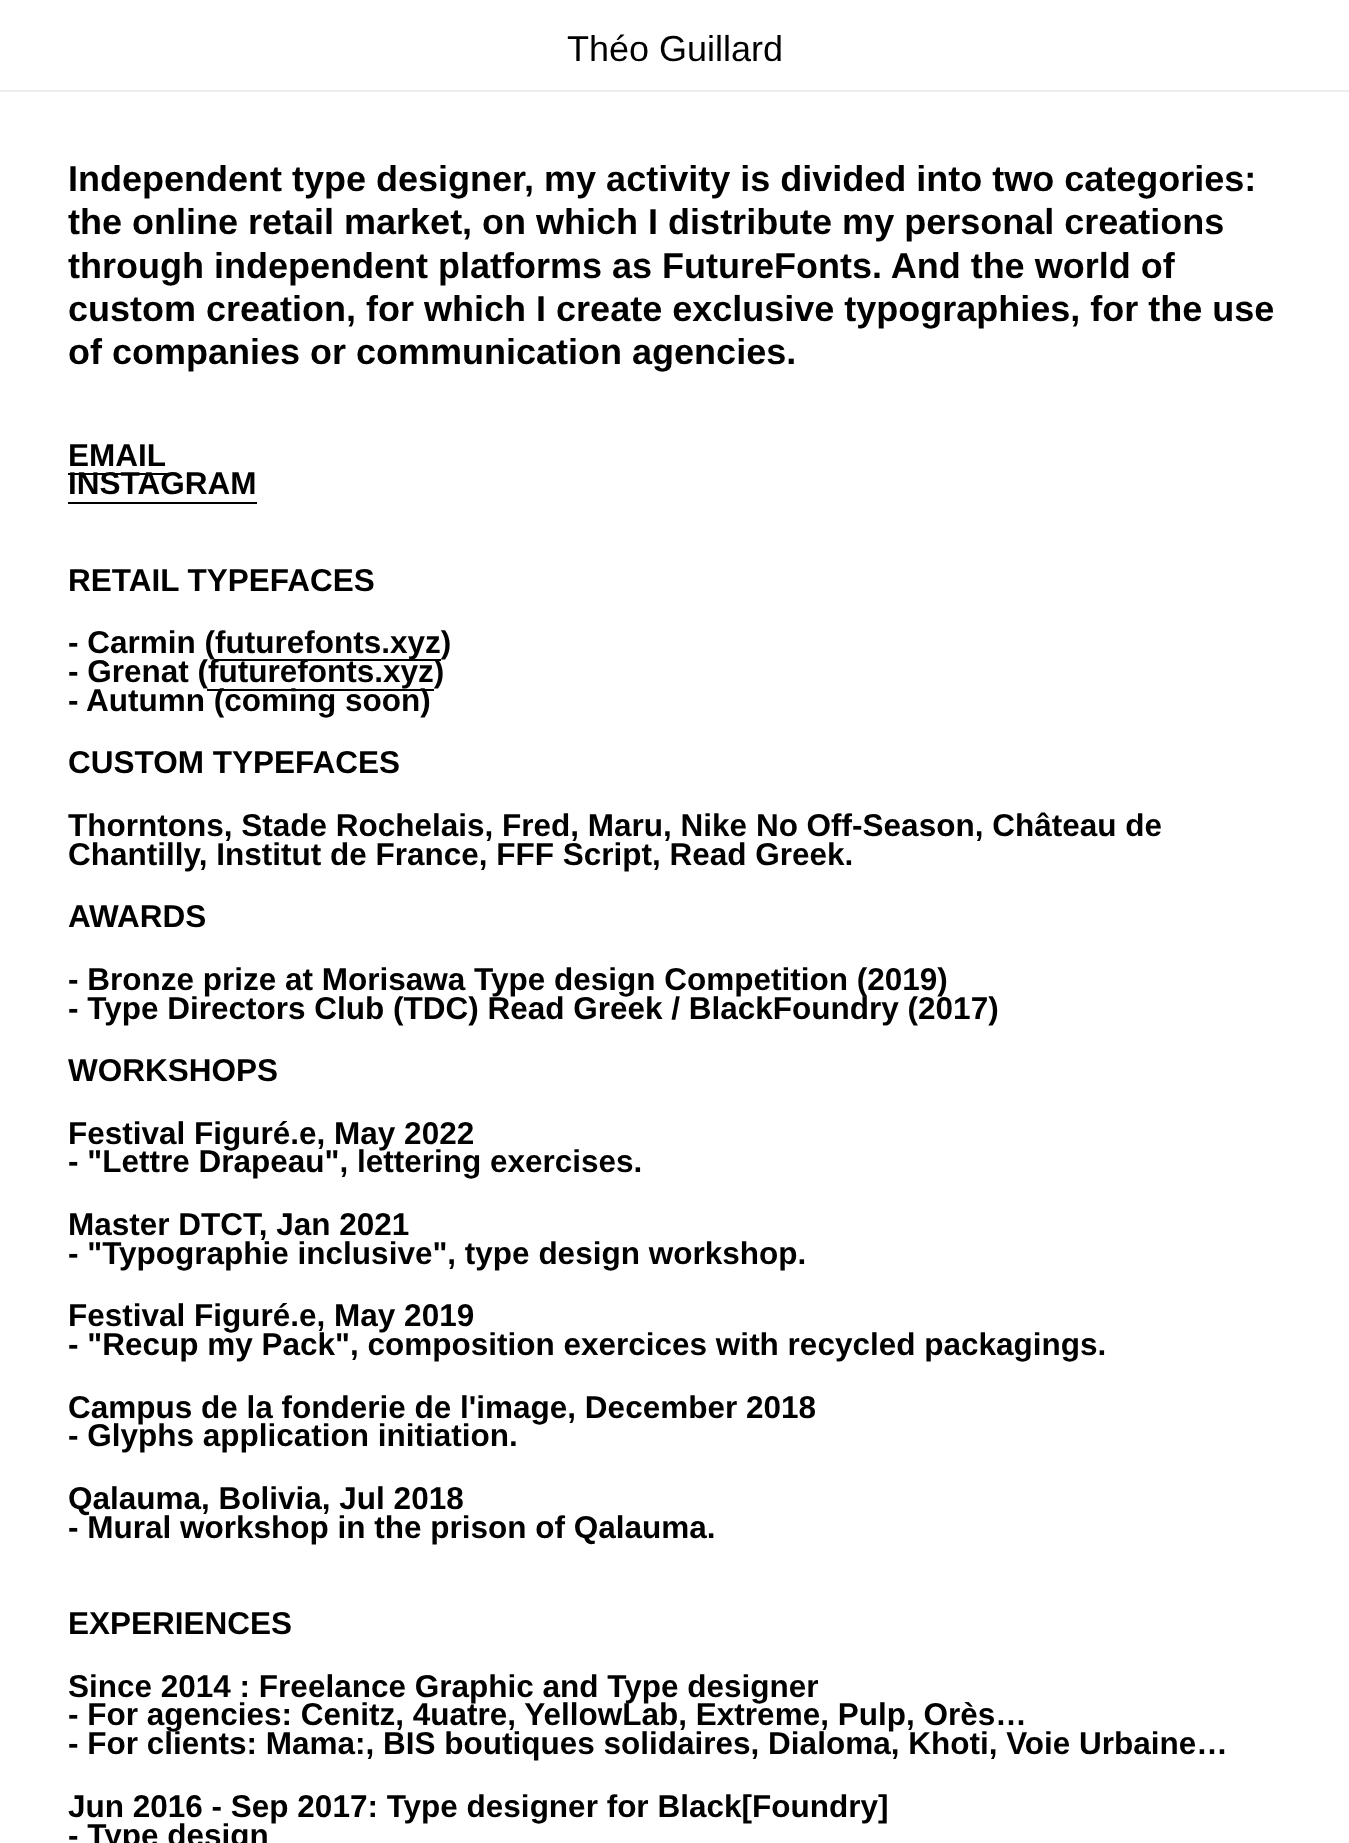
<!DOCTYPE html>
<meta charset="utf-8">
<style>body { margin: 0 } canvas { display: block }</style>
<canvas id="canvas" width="1349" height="1843"></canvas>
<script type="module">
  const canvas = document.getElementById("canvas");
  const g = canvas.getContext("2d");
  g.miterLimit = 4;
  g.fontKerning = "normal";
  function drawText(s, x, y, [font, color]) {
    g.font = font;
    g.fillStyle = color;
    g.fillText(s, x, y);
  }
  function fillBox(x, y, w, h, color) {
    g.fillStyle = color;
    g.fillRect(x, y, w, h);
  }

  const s1 = ["36px Liberation Sans", "#000000"];
  const s2 = ["bold 36px Liberation Sans", "#000000"];
  const s3 = ["bold 31.5px Liberation Sans", "#000000"];

  fillBox(0, 0, 1349, 1843, "#FFFFFF");
  drawText("Théo Guillard", 567, 61, s1);
  fillBox(0, 90, 1349, 2, "#EDEDED");
  drawText("Independent type designer, my activity is divided into two categories:", 68, 191, s2);
  drawText("the online retail market, on which I distribute my personal creations", 68, 234, s2);
  drawText("through independent platforms as FutureFonts. And the world of", 68, 278, s2);
  drawText("custom creation, for which I create exclusive typographies, for the use", 68, 321, s2);
  drawText("of companies or communication agencies.", 68, 364, s2);
  drawText("EMAIL", 68, 466, s3);
  fillBox(68, 473, 99, 2, "#000000");
  drawText("INSTAGRAM", 68, 494, s3);
  fillBox(68, 502, 189, 2, "#000000");
  drawText("RETAIL TYPEFACES", 68, 591, s3);
  drawText("- Carmin (", 68, 653, s3);
  fillBox(214, 659, 227, 2, "#000000");
  drawText("futurefonts.xyz)", 215, 653, s3);
  drawText("- Grenat (futurefonts.xyz)", 68, 682, s3);
  fillBox(207, 689, 227, 2, "#000000");
  drawText("- Autumn (coming soon)", 68, 711, s3);
  drawText("CUSTOM TYPEFACES", 68, 773, s3);
  drawText("Thorntons, Stade Rochelais, Fred, Maru, Nike No Off-Season, Château de", 68, 836, s3);
  drawText("Chantilly, Institut de France, FFF Script, Read Greek.", 68, 865, s3);
  drawText("AWARDS", 68, 927, s3);
  drawText("- Bronze prize at Morisawa Type design Competition (2019)", 68, 990, s3);
  drawText("- Type Directors Club (TDC) Read Greek / BlackFoundry (2017)", 68, 1019, s3);
  drawText("WORKSHOPS", 68, 1081, s3);
  drawText("Festival Figuré.e, May 2022", 68, 1144, s3);
  drawText("- \"Lettre Drapeau\", lettering exercises.", 68, 1172, s3);
  drawText("Master DTCT, Jan 2021", 68, 1235, s3);
  drawText("- \"Typographie inclusive\", type design workshop.", 68, 1264, s3);
  drawText("Festival Figuré.e, May 2019", 68, 1326, s3);
  drawText("- \"Recup my Pack\", composition exercices with recycled packagings.", 68, 1355, s3);
  drawText("Campus de la fonderie de l'image, December 2018", 68, 1418, s3);
  drawText("- Glyphs application initiation.", 68, 1446, s3);
  drawText("Qalauma, Bolivia, Jul 2018", 68, 1509, s3);
  drawText("- Mural workshop in the prison of Qalauma.", 68, 1538, s3);
  drawText("EXPERIENCES", 68, 1634, s3);
  drawText("Since 2014 : Freelance Graphic and Type designer", 68, 1697, s3);
  drawText("- For agencies: Cenitz, 4uatre, YellowLab, Extreme, Pulp, Orès…", 68, 1725, s3);
  drawText("- For clients: Mama:, BIS boutiques solidaires, Dialoma, Khoti, Voie Urbaine…", 68, 1754, s3);
  drawText("Jun 2016 - Sep 2017: Type designer for Black[Foundry]", 68, 1817, s3);
  drawText("- Type design", 68, 1846, s3);
</script>
